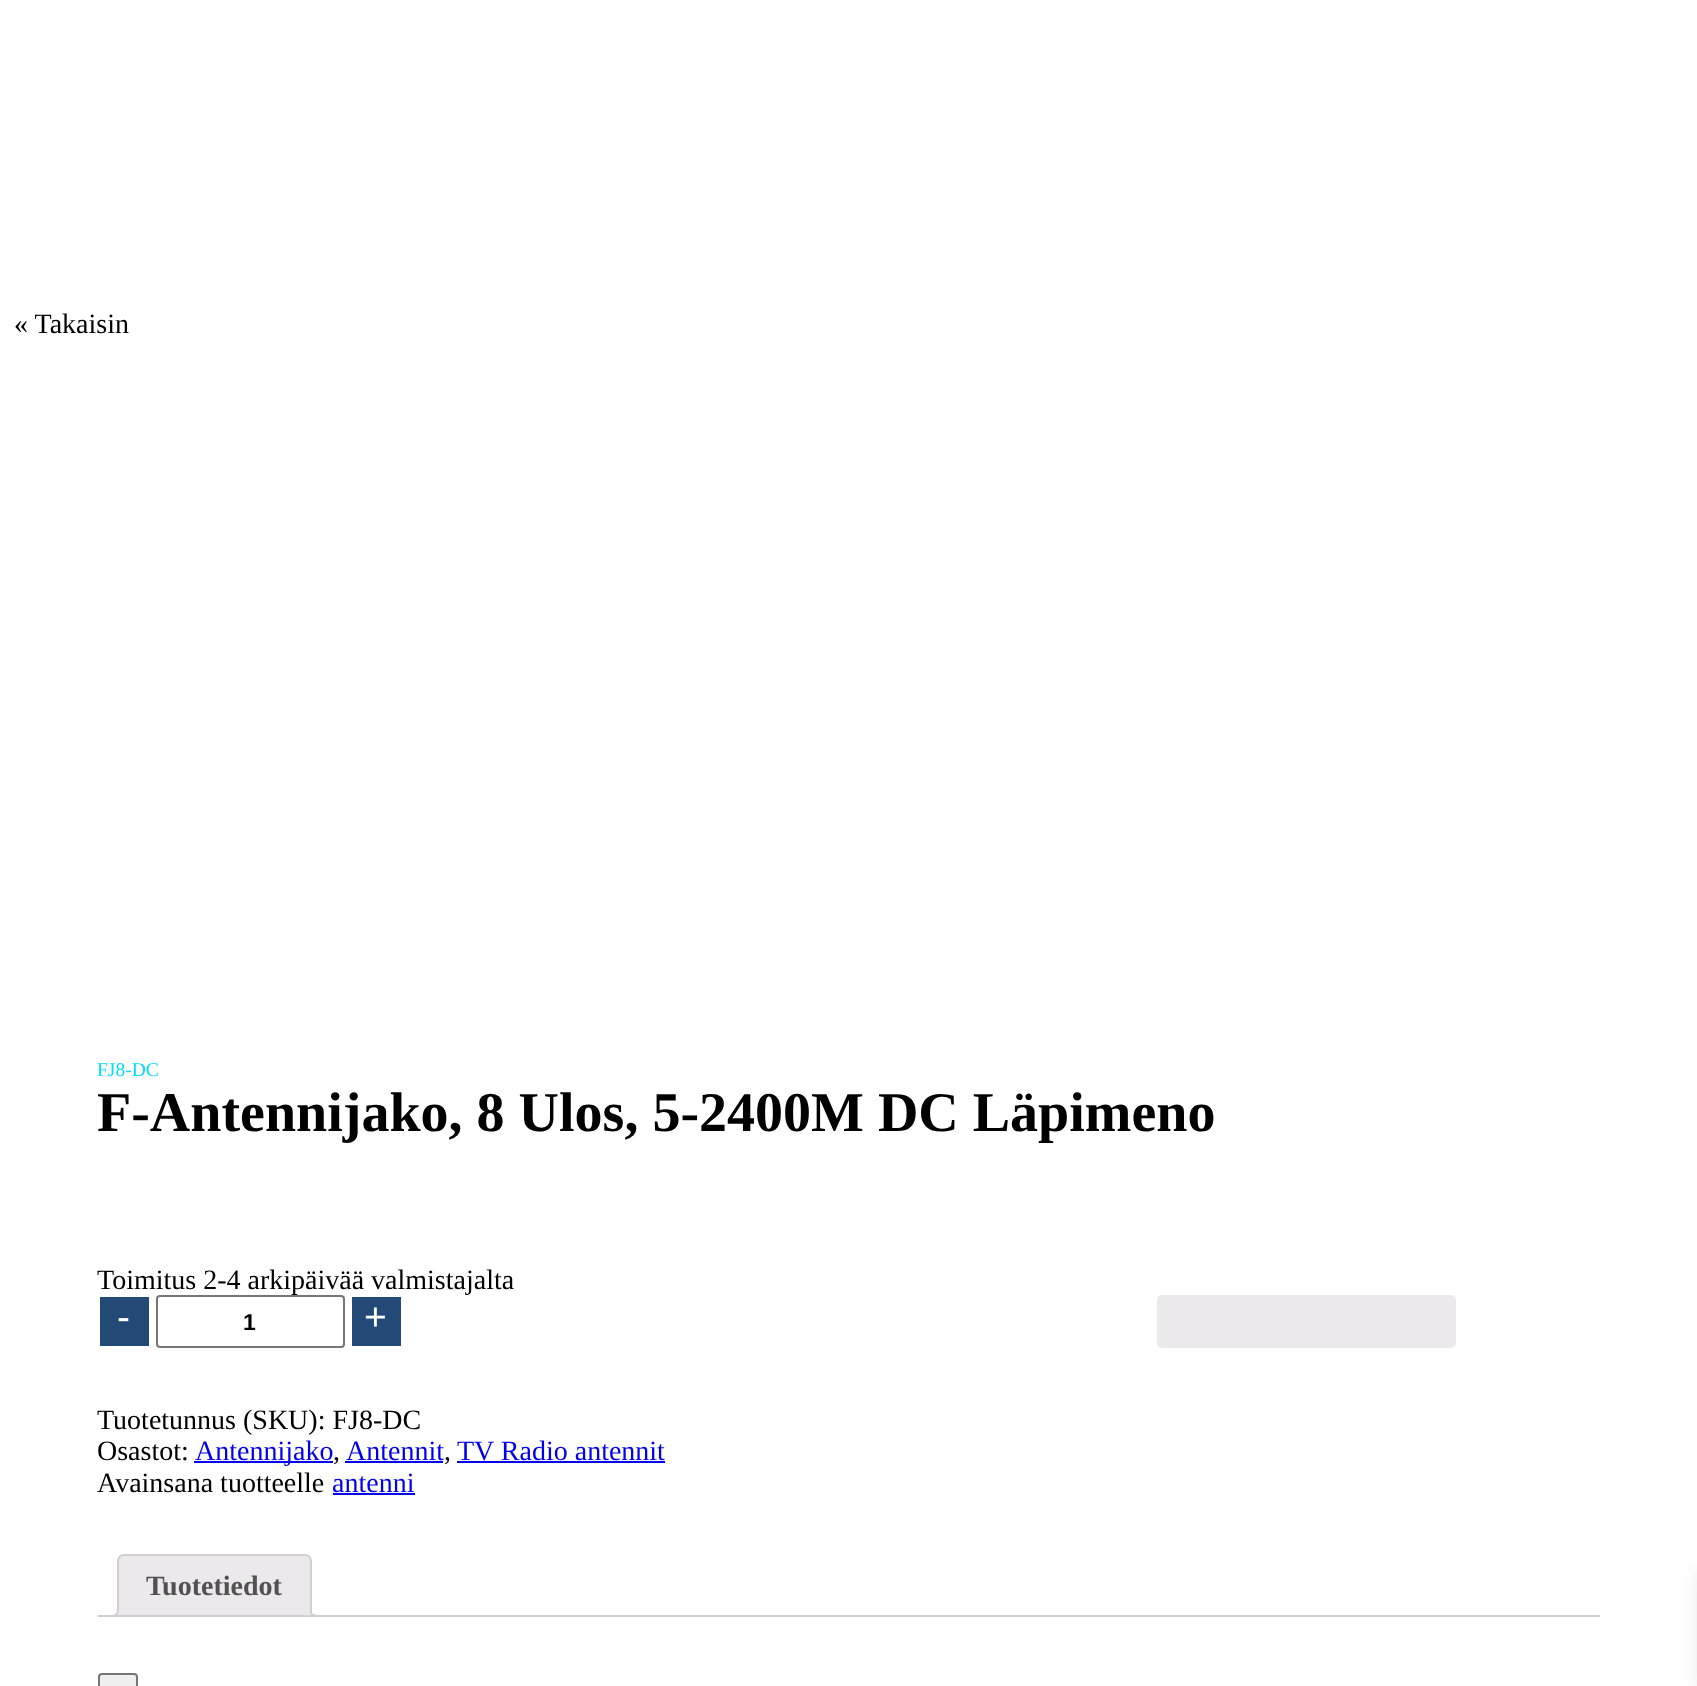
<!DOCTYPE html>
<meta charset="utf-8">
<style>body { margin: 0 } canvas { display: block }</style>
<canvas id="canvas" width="1697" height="1686"></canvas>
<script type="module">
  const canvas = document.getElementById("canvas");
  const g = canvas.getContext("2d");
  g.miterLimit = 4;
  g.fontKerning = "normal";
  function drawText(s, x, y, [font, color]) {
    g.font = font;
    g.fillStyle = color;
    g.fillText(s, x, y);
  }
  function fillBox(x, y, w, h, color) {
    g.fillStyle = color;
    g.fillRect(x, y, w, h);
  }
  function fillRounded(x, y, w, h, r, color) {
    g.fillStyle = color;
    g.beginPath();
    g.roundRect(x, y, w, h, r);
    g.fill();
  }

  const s1 = ["28px Liberation Serif", "#000000"];
  const s2 = ["19.5px Liberation Serif", "#00DDFF"];
  const s3 = ["bold 56px Liberation Serif", "#000000"];
  const s4 = ["39px Liberation Sans", "#FFFFFF"];
  const s5 = ["bold 23px Liberation Sans", "#000000"];
  const s6 = ["28px Liberation Serif", "#0000EE"];
  const s7 = ["bold 28px Liberation Serif", "#515151"];

  fillBox(0, 0, 1697, 1686, "#FFFFFF");
  drawText("« Takaisin", 14, 333, s1);
  drawText("FJ8-DC", 97, 1076, s2);
  drawText("F-Antennijako, 8 Ulos, 5-2400M DC Läpimeno", 97, 1131, s3);
  drawText("Toimitus 2-4 arkipäivää valmistajalta", 97, 1289, s1);
  fillBox(100, 1297, 49, 49, "#234976");
  drawText("-", 117, 1330, s4);
  g.beginPath();
  g.roundRect(157, 1296, 187, 51, 3);
  g.strokeStyle = "#767676";
  g.lineWidth = 2;
  g.stroke();
  drawText("1", 243, 1330, s5);
  fillBox(352, 1297, 49, 49, "#234976");
  drawText("+", 364, 1330, s4);
  fillRounded(1157, 1295, 299, 53, 5, "#EBE9EB");
  drawText("Tuotetunnus (SKU): FJ8-DC", 97, 1429, s1);
  drawText("Osastot:", 97, 1460, s1);
  fillBox(194, 1461, 139, 2, "#0000EE");
  drawText("Antennijako", 195, 1460, s6);
  drawText(",", 333, 1460, s1);
  drawText("Antennit", 346, 1460, s6);
  fillBox(345, 1461, 98, 2, "#0000EE");
  drawText(",", 444, 1460, s1);
  drawText("TV Radio antennit", 457, 1460, s6);
  fillBox(457, 1461, 208, 2, "#0000EE");
  drawText("Avainsana tuotteelle", 97, 1492, s1);
  drawText("antenni", 332, 1492, s6);
  fillBox(333, 1493, 82, 2, "#0000EE");
  g.fillStyle = "#EBE9EB";
  g.beginPath();
  g.roundRect(118, 1555, 193, 61, [6, 6, 0, 0]);
  g.fill();
  g.strokeStyle = "#D3CED2";
  g.stroke();
  drawText("Tuotetiedot", 146, 1595, s7);
  g.save();
  g.beginPath();
  g.rect(98, 1554, 1502, 63);
  g.clip();
  g.fillStyle = "#EBE9EB";
  g.beginPath();
  g.moveTo(114, 1616.5);
  g.lineTo(114, 1621);
  g.bezierCurveTo(120.5, 1621, 123, 1618.5, 123, 1612);
  g.lineTo(118.5, 1612);
  g.bezierCurveTo(118, 1614.5, 116.5, 1616, 114, 1616.5);
  g.closePath();
  g.fill();
  g.restore();
  g.fillStyle = "#D3CED2";
  g.beginPath();
  g.moveTo(110, 1608);
  g.lineTo(119, 1608);
  g.bezierCurveTo(119, 1614.5, 116.5, 1617, 110, 1617);
  g.closePath();
  g.moveTo(110, 1608);
  g.lineTo(117, 1608);
  g.bezierCurveTo(117, 1613.5, 115.5, 1615, 110, 1615);
  g.closePath();
  g.fill("evenodd");
  g.save();
  g.beginPath();
  g.rect(98, 1554, 1502, 63);
  g.clip();
  g.fillStyle = "#EBE9EB";
  g.beginPath();
  g.moveTo(306, 1612);
  g.bezierCurveTo(306, 1618.5, 308.5, 1621, 315, 1621);
  g.lineTo(315, 1617);
  g.bezierCurveTo(312.5, 1616, 310.5, 1614.5, 310, 1612);
  g.closePath();
  g.fill();
  g.restore();
  g.beginPath();
  g.moveTo(310, 1608);
  g.lineTo(318.5, 1608);
  g.lineTo(318.5, 1617);
  g.bezierCurveTo(314, 1617, 310, 1615.5, 310, 1610);
  g.closePath();
  g.moveTo(311.5, 1608);
  g.lineTo(318.5, 1608);
  g.lineTo(318.5, 1615);
  g.bezierCurveTo(315, 1615, 311.5, 1614.5, 311.5, 1610);
  g.closePath();
  g.fill("evenodd");
  fillBox(98, 1615, 1502, 2, "#D3CED2");
  g.fillStyle = "#EFEFEF";
  g.beginPath();
  g.roundRect(99, 1674, 38, 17, 3);
  g.fill();
  g.strokeStyle = "#767676";
  g.stroke();
  g.fillStyle = "rgba(0, 0, 0, 0.1)";
  g.filter = "blur(9px)";
  g.beginPath();
  g.rect(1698, 1572, 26, 113);
  g.fill();
  g.filter = "none";
</script>
